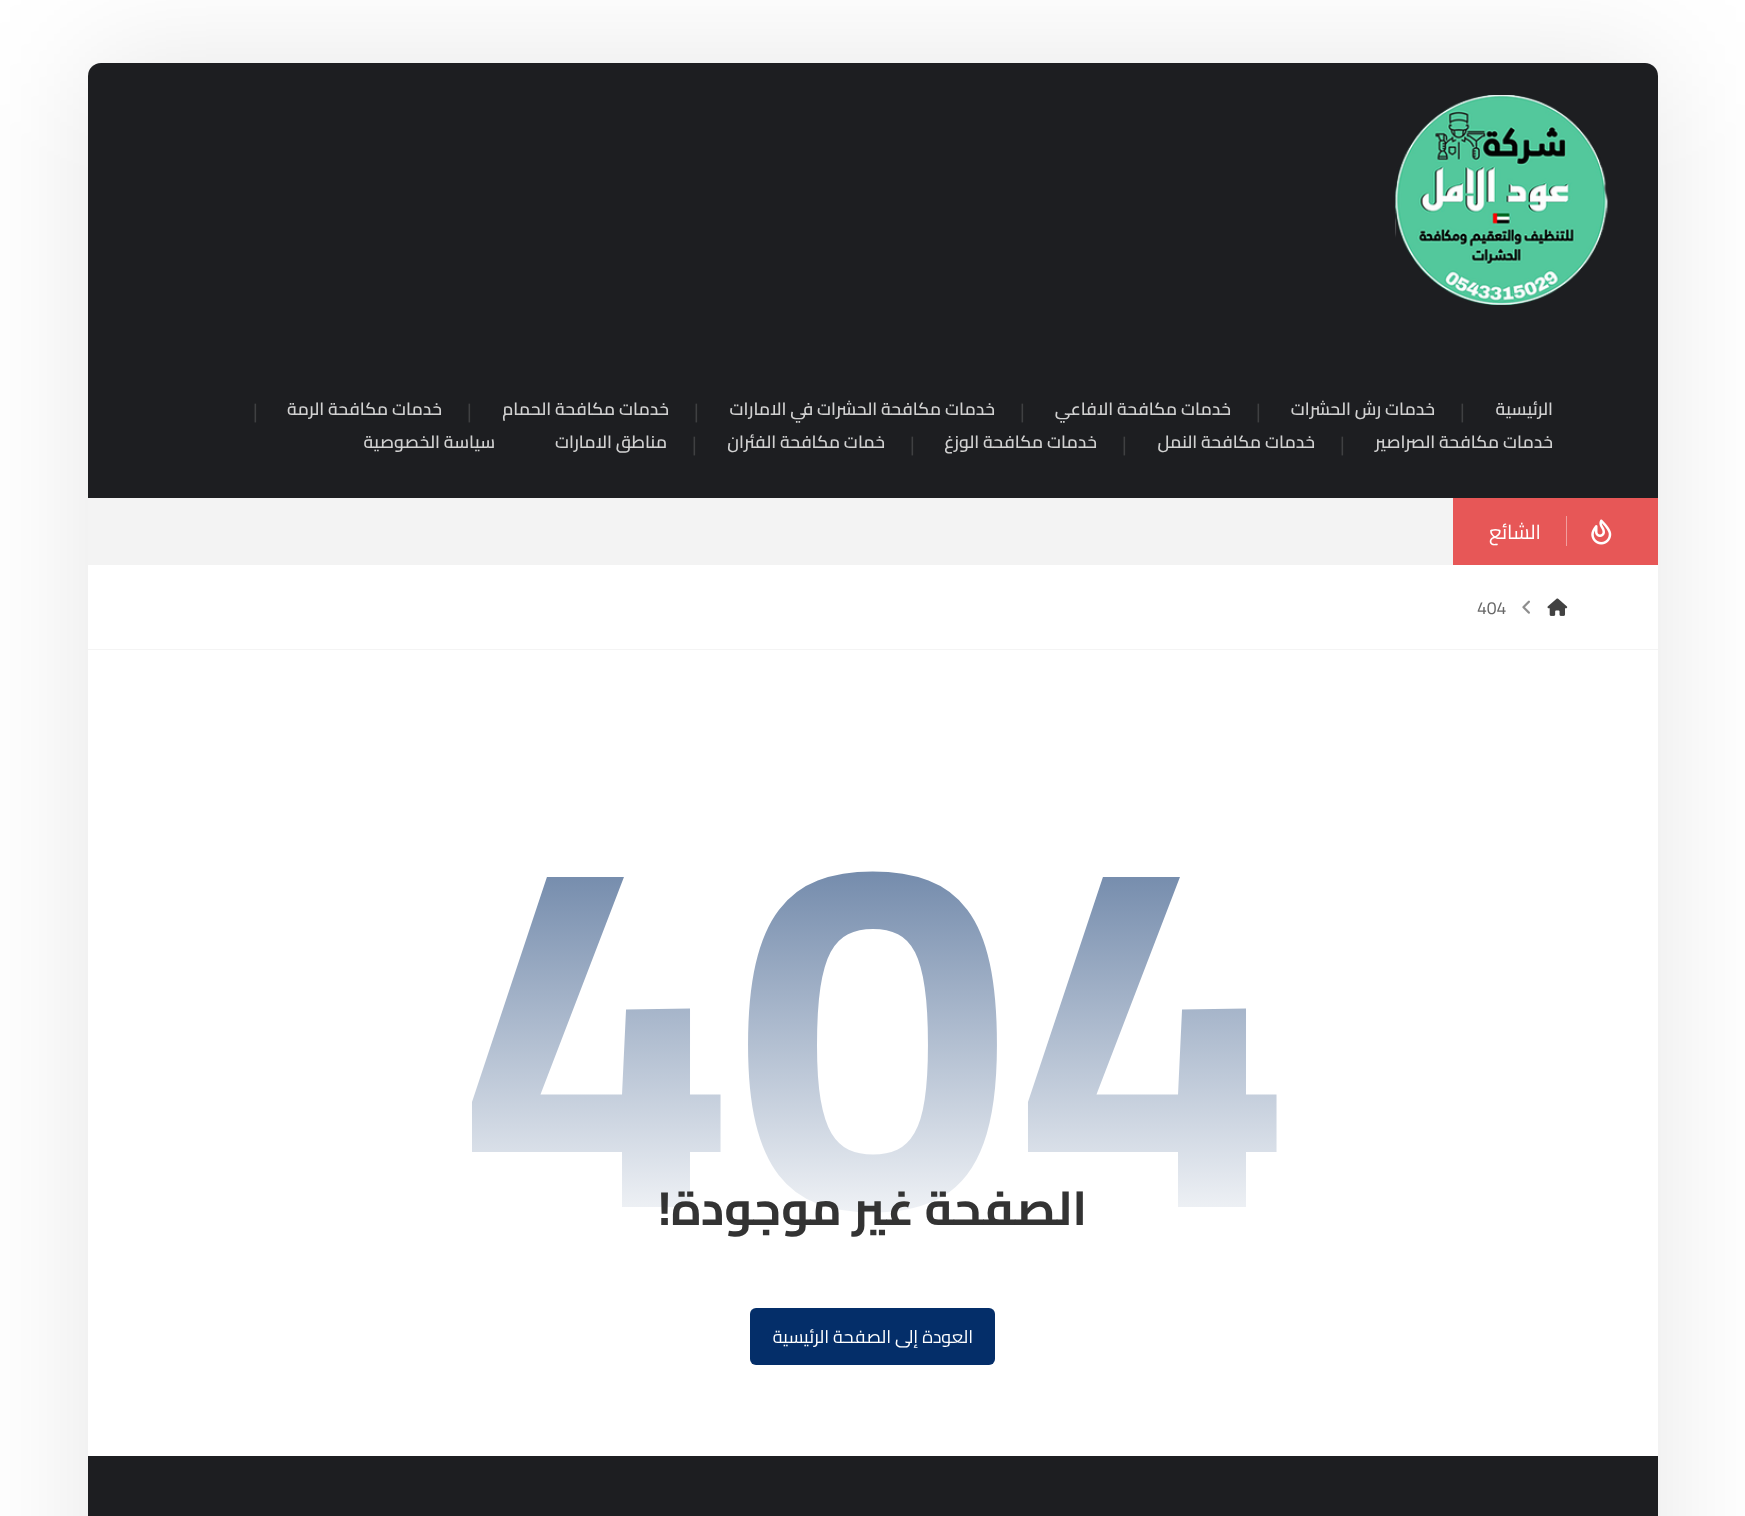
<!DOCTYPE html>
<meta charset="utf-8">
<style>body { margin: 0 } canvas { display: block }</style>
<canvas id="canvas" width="1745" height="1516"></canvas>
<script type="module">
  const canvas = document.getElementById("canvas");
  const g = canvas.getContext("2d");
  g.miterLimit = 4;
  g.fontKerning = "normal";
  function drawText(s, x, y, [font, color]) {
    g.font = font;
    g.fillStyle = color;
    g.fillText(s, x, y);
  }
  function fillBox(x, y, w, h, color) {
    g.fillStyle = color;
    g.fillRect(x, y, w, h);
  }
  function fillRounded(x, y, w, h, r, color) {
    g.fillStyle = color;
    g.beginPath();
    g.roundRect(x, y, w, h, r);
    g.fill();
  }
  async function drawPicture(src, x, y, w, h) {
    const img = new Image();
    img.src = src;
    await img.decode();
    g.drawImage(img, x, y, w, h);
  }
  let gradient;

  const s1 = ["600 17.5px Cairo", "#D1D1D1"];
  const s2 = ["20px Cairo", "#3F4042"];
  const s3 = ["20px Cairo", "#FFFFFF"];
  const s4 = ["17.5px Cairo", "#686868"];
  const s5 = ["bold 47.5px Cairo", "#333333"];
  const s6 = ["18px Cairo", "#FFFFFF"];

  fillBox(0, 0, 1745, 1516, "#FFFFFF");
  g.fillStyle = "rgba(0, 0, 0, 0.1)";
  g.filter = "blur(62.5px)";
  g.beginPath();
  g.roundRect(88, 63, 1570, 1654, 13);
  g.fill();
  g.filter = "none";
  fillRounded(88, 63, 1570, 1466, 13, "#FFFFFF");
  g.fillStyle = "#1D1E21";
  g.beginPath();
  g.roundRect(88, 63, 1570, 435, [13, 13, 0, 0]);
  g.fill();
  await drawPicture("pic1.png", 1395, 95, 213, 210);
  g.direction = "rtl";
  drawText("الرئيسية", 1553, 415, s1);
  g.direction = "ltr";
  drawText("|", 1460, 418, s2);
  g.direction = "rtl";
  drawText("خدمات رش الحشرات", 1435, 415, s1);
  g.direction = "ltr";
  drawText("|", 1256, 418, s2);
  g.direction = "rtl";
  drawText("خدمات مكافحة الافاعي", 1231, 415, s1);
  g.direction = "ltr";
  drawText("|", 1020, 418, s2);
  g.direction = "rtl";
  drawText("خدمات مكافحة الحشرات في الامارات", 995, 415, s1);
  g.direction = "ltr";
  drawText("|", 694, 418, s2);
  g.direction = "rtl";
  drawText("خدمات مكافحة الحمام", 669, 415, s1);
  g.direction = "ltr";
  drawText("|", 467, 418, s2);
  g.direction = "rtl";
  drawText("خدمات مكافحة الرمة", 442, 415, s1);
  g.direction = "ltr";
  drawText("|", 253, 418, s2);
  g.direction = "rtl";
  drawText("خدمات مكافحة الصراصير", 1553, 448, s1);
  g.direction = "ltr";
  drawText("|", 1340, 451, s2);
  g.direction = "rtl";
  drawText("خدمات مكافحة النمل", 1315, 448, s1);
  g.direction = "ltr";
  drawText("|", 1122, 451, s2);
  g.direction = "rtl";
  drawText("خدمات مكافحة الوزغ", 1097, 448, s1);
  g.direction = "ltr";
  drawText("|", 910, 451, s2);
  g.direction = "rtl";
  drawText("خمات مكافحة الفئران", 885, 448, s1);
  g.direction = "ltr";
  drawText("|", 692, 451, s2);
  g.direction = "rtl";
  drawText("مناطق الامارات", 667, 448, s1);
  drawText("سياسة الخصوصية", 495, 448, s1);
  fillBox(88, 498, 1365, 67, "#F3F3F3");
  fillBox(1453, 498, 205, 67, "#E75757");
  fillBox(1566, 516, 1, 30, "#F19E9E");
  await drawPicture("pic2.png", 1591, 519, 21, 26);
  drawText("الشائع", 1541, 539, s3);
  fillBox(88, 649, 1570, 1, "#F4F4F4");
  await drawPicture("pic3.png", 1547, 598, 21, 18);
  await drawPicture("pic4.png", 1522, 600, 8, 14);
  g.direction = "ltr";
  drawText("404", 1477, 614, s4);
  g.font = "bold 500px Cairo";
  gradient = g.createLinearGradient(873, 556, 873, 1492);
  gradient.addColorStop(0, "#042E69");
  gradient.addColorStop(0.75, "#FFFFFF");
  g.fillStyle = gradient;
  g.fillText("404", 456, 1207);
  g.direction = "rtl";
  drawText("الصفحة غير موجودة!", 1087, 1225, s5);
  fillRounded(750, 1308, 245, 57, 6, "#042E69");
  drawText("العودة إلى الصفحة الرئيسية", 973, 1343, s6);
  fillBox(88, 1456, 1570, 60, "#1D1E21");
</script>
